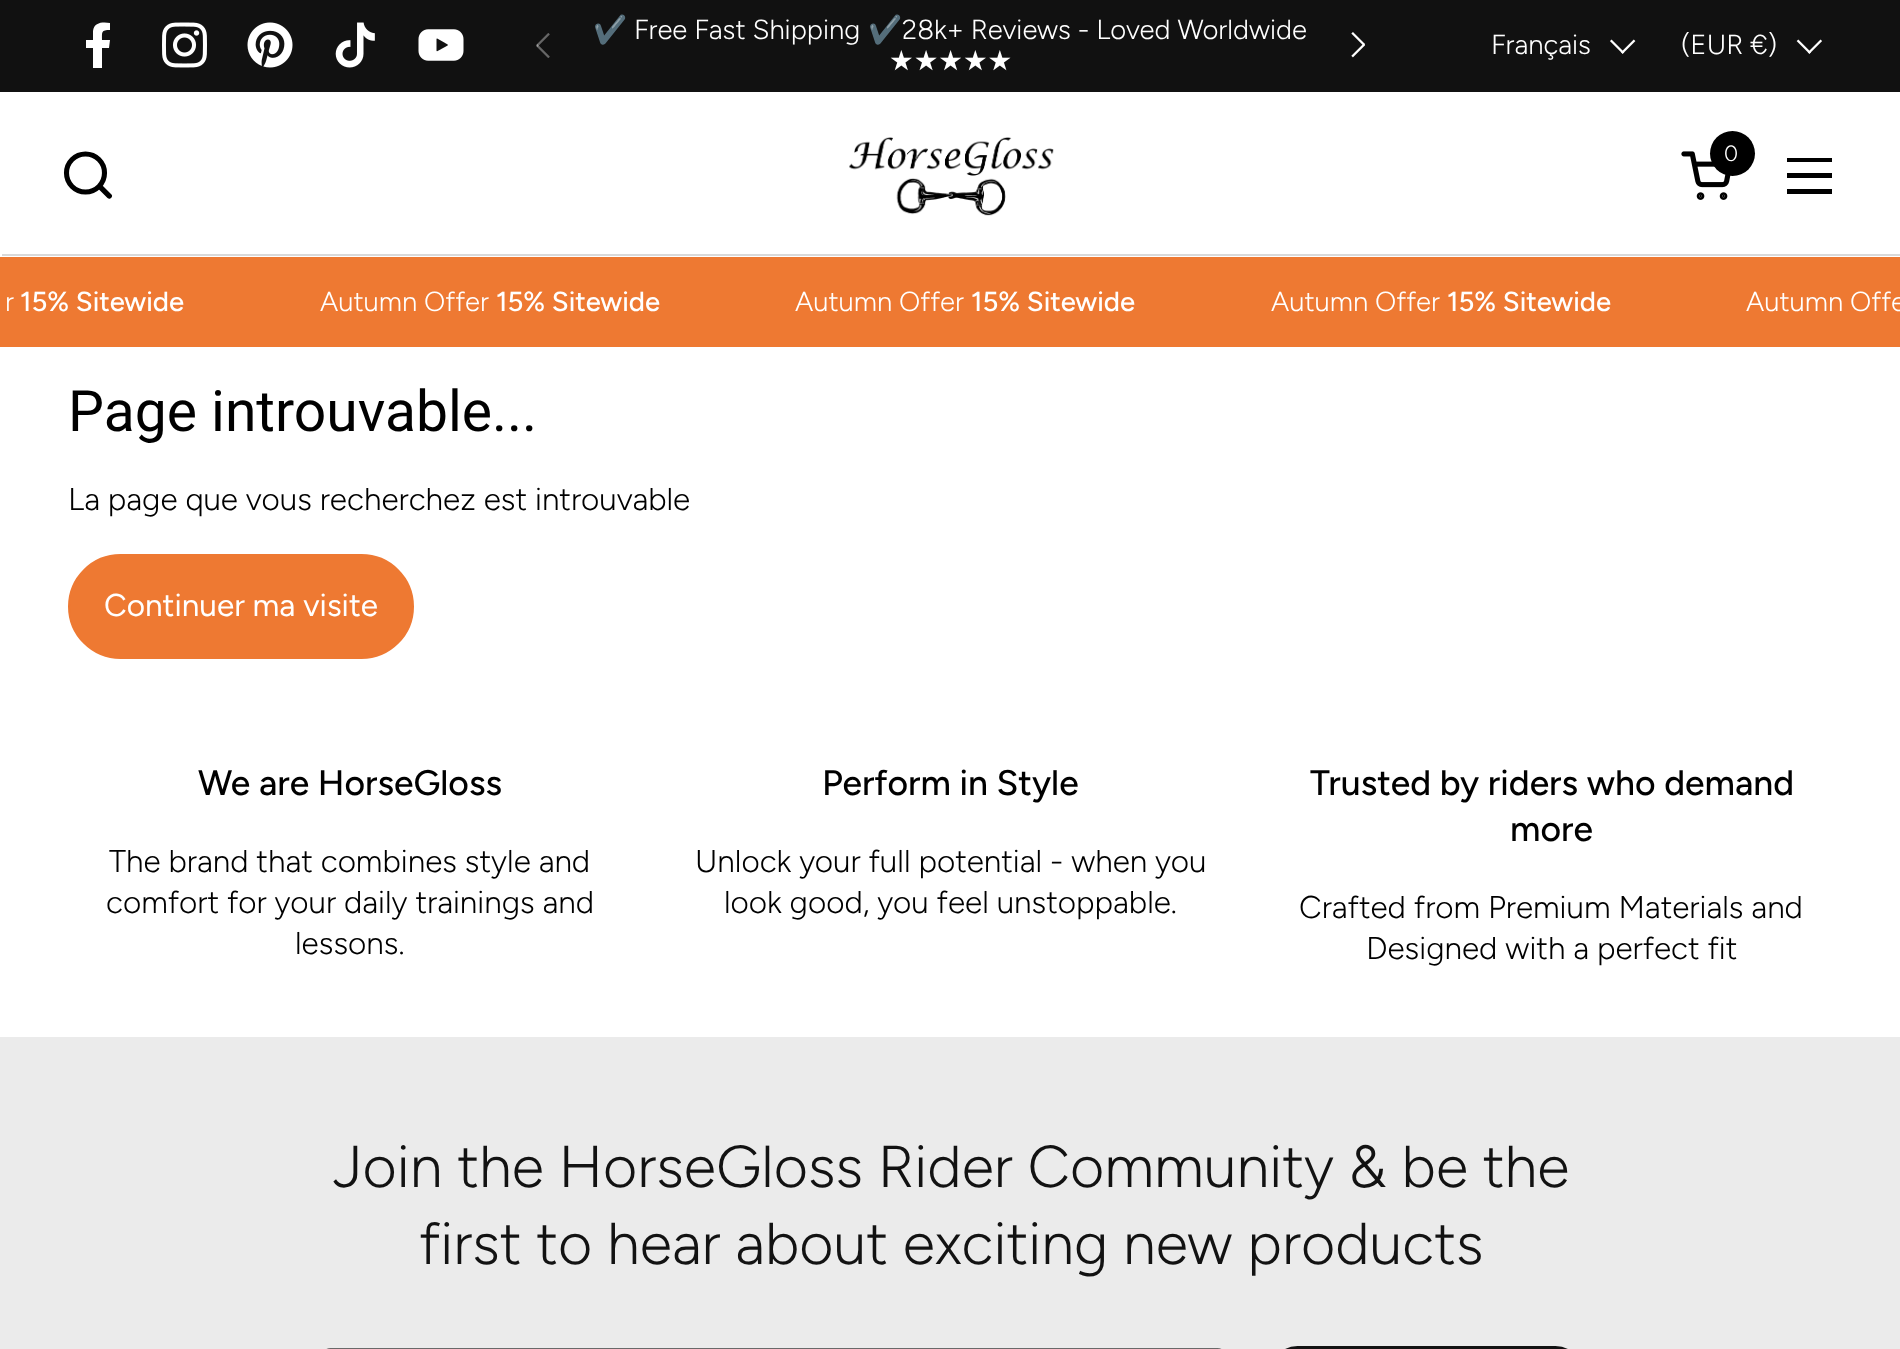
<!DOCTYPE html>
<meta charset="utf-8">
<style>body { margin: 0 } canvas { display: block }</style>
<canvas id="canvas" width="1900" height="1349"></canvas>
<script type="module">
  const canvas = document.getElementById("canvas");
  const g = canvas.getContext("2d");
  g.miterLimit = 4;
  g.fontKerning = "normal";
  function drawText(s, x, y, [font, color]) {
    g.font = font;
    g.fillStyle = color;
    g.fillText(s, x, y);
  }
  function fillBox(x, y, w, h, color) {
    g.fillStyle = color;
    g.fillRect(x, y, w, h);
  }
  async function drawPicture(src, x, y, w, h) {
    const img = new Image();
    img.src = src;
    await img.decode();
    g.drawImage(img, x, y, w, h);
  }

  const s1 = ["27.5px Noto Color Emoji", "#FFFFFF"];
  const s2 = ["300 27.5px Figtree", "#FFFFFF"];
  const s3 = ["27.5px DejaVu Sans", "#FFFFFF"];
  const s4 = ["300 22px Figtree", "#FFFFFF"];
  const s5 = ["500 27.5px Figtree", "#FFFFFF"];
  const s6 = ["57px Roboto", "#000000"];
  const s7 = ["300 31.5px Figtree", "#000000"];
  const s8 = ["31.5px Figtree", "#FFFFFF"];
  const s9 = ["500 35.5px Figtree", "#000000"];
  const s10 = ["300 59.1px Figtree", "#121212"];

  fillBox(0, 0, 1900, 1349, "#FFFFFF");
  fillBox(0, 0, 1900, 92, "#111111");
  g.fillStyle = "#FFFFFF";
  g.beginPath();
  g.moveTo(109, 48);
  g.lineTo(110, 40);
  g.lineTo(102, 40);
  g.bezierCurveTo(102, 32, 101, 30, 110, 30);
  g.lineTo(110, 23);
  g.bezierCurveTo(103, 22, 94, 22, 93, 31);
  g.lineTo(93, 40);
  g.lineTo(86, 40);
  g.lineTo(86, 48);
  g.lineTo(93, 48);
  g.lineTo(93, 68);
  g.lineTo(102, 68);
  g.lineTo(102, 48);
  g.closePath();
  g.fill();
  await drawPicture("pic1.png", 162, 22, 45, 46);
  await drawPicture("pic2.png", 247, 22, 46, 46);
  await drawPicture("pic3.png", 335, 22, 40, 46);
  await drawPicture("pic4.png", 418, 29, 46, 32);
  await drawPicture("pic5.png", 536, 33, 14, 25);
  drawText("✔️", 593, 39, s1);
  drawText("Free Fast Shipping", 634, 39, s2);
  drawText("✔️", 868, 39, s1);
  drawText("28k+ Reviews - Loved Worldwide", 902, 39, s2);
  drawText("★★★★★", 889, 70, s3);
  await drawPicture("pic6.png", 1351, 32, 14, 26);
  drawText("Français", 1491, 54, s2);
  await drawPicture("pic7.png", 1610, 39, 26, 15);
  drawText("(EUR €)", 1681, 54, s2);
  await drawPicture("pic8.png", 1796, 39, 26, 15);
  g.beginPath();
  g.arc(85.5, 173, 19, 0, Math.PI * 2);
  g.strokeStyle = "#000000";
  g.lineWidth = 5.1;
  g.stroke();
  g.fillStyle = "#000000";
  g.beginPath();
  g.moveTo(102.5, 185.5);
  g.lineTo(100.5, 183.5);
  g.lineTo(97, 187);
  g.lineTo(98.5, 189);
  g.closePath();
  g.moveTo(107.5, 198);
  g.bezierCurveTo(110, 200.5, 113.5, 196.5, 111.5, 194.5);
  g.closePath();
  g.moveTo(98.5, 189);
  g.lineTo(107.5, 198);
  g.lineTo(111.5, 194.5);
  g.lineTo(102.5, 185.5);
  g.closePath();
  g.fill();
  await drawPicture("pic9.png", 849, 137, 205, 79);
  g.beginPath();
  g.arc(1732.5, 153.5, 22.5, 0, Math.PI * 2);
  g.fill();
  drawText("0", 1724, 161, s4);
  await drawPicture("pic10.png", 1681, 151, 50, 49);
  fillBox(1787, 158, 45, 4, "#000000");
  fillBox(1787, 173, 45, 5, "#000000");
  fillBox(1787, 189, 45, 5, "#000000");
  fillBox(2, 254, 1898, 2, "#D9D9D9");
  fillBox(0, 257, 1900, 90, "#EE7932");
  drawText("r", 5, 311, s2);
  drawText("15% Sitewide", 20, 311, s5);
  drawText("Autumn Offer", 320, 311, s2);
  drawText("15% Sitewide", 496, 311, s5);
  drawText("Autumn Offer", 795, 311, s2);
  drawText("15% Sitewide", 971, 311, s5);
  drawText("Autumn Offer", 1271, 311, s2);
  drawText("15% Sitewide", 1447, 311, s5);
  drawText("Autumn Offe", 1746, 311, s2);
  drawText("Page introuvable...", 68, 431, s6);
  drawText("La page que vous recherchez est introuvable", 68, 510, s7);
  g.fillStyle = "#EE7932";
  g.beginPath();
  g.roundRect(69, 555, 344, 103, 51.5);
  g.fill();
  g.strokeStyle = "#EE7932";
  g.lineWidth = 2;
  g.stroke();
  drawText("Continuer ma visite", 104, 616, s8);
  drawText("We are HorseGloss", 198, 795, s9);
  drawText("The brand that combines style and", 109, 872, s7);
  drawText("comfort for your daily trainings and", 106, 913, s7);
  drawText("lessons.", 295, 954, s7);
  drawText("Perform in Style", 822, 795, s9);
  drawText("Unlock your full potential - when you", 695, 872, s7);
  drawText("look good, you feel unstoppable.", 724, 913, s7);
  drawText("Trusted by riders who demand", 1310, 795, s9);
  drawText("more", 1510, 841, s9);
  drawText("Crafted from Premium Materials and", 1299, 918, s7);
  drawText("Designed with a perfect fit", 1366, 959, s7);
  fillBox(0, 1037, 1900, 312, "#EBEBEB");
  drawText("Join the HorseGloss Rider Community & be the", 333, 1187, s10);
  drawText("first to hear about exciting new products", 419, 1264, s10);
  g.beginPath();
  g.roundRect(323, 1349, 902, 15, 13);
  g.strokeStyle = "#696969";
  g.stroke();
  g.beginPath();
  g.roundRect(1272, 1347, 309, 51, 47);
  g.fill();
  g.strokeStyle = "#121212";
  g.stroke();
</script>
